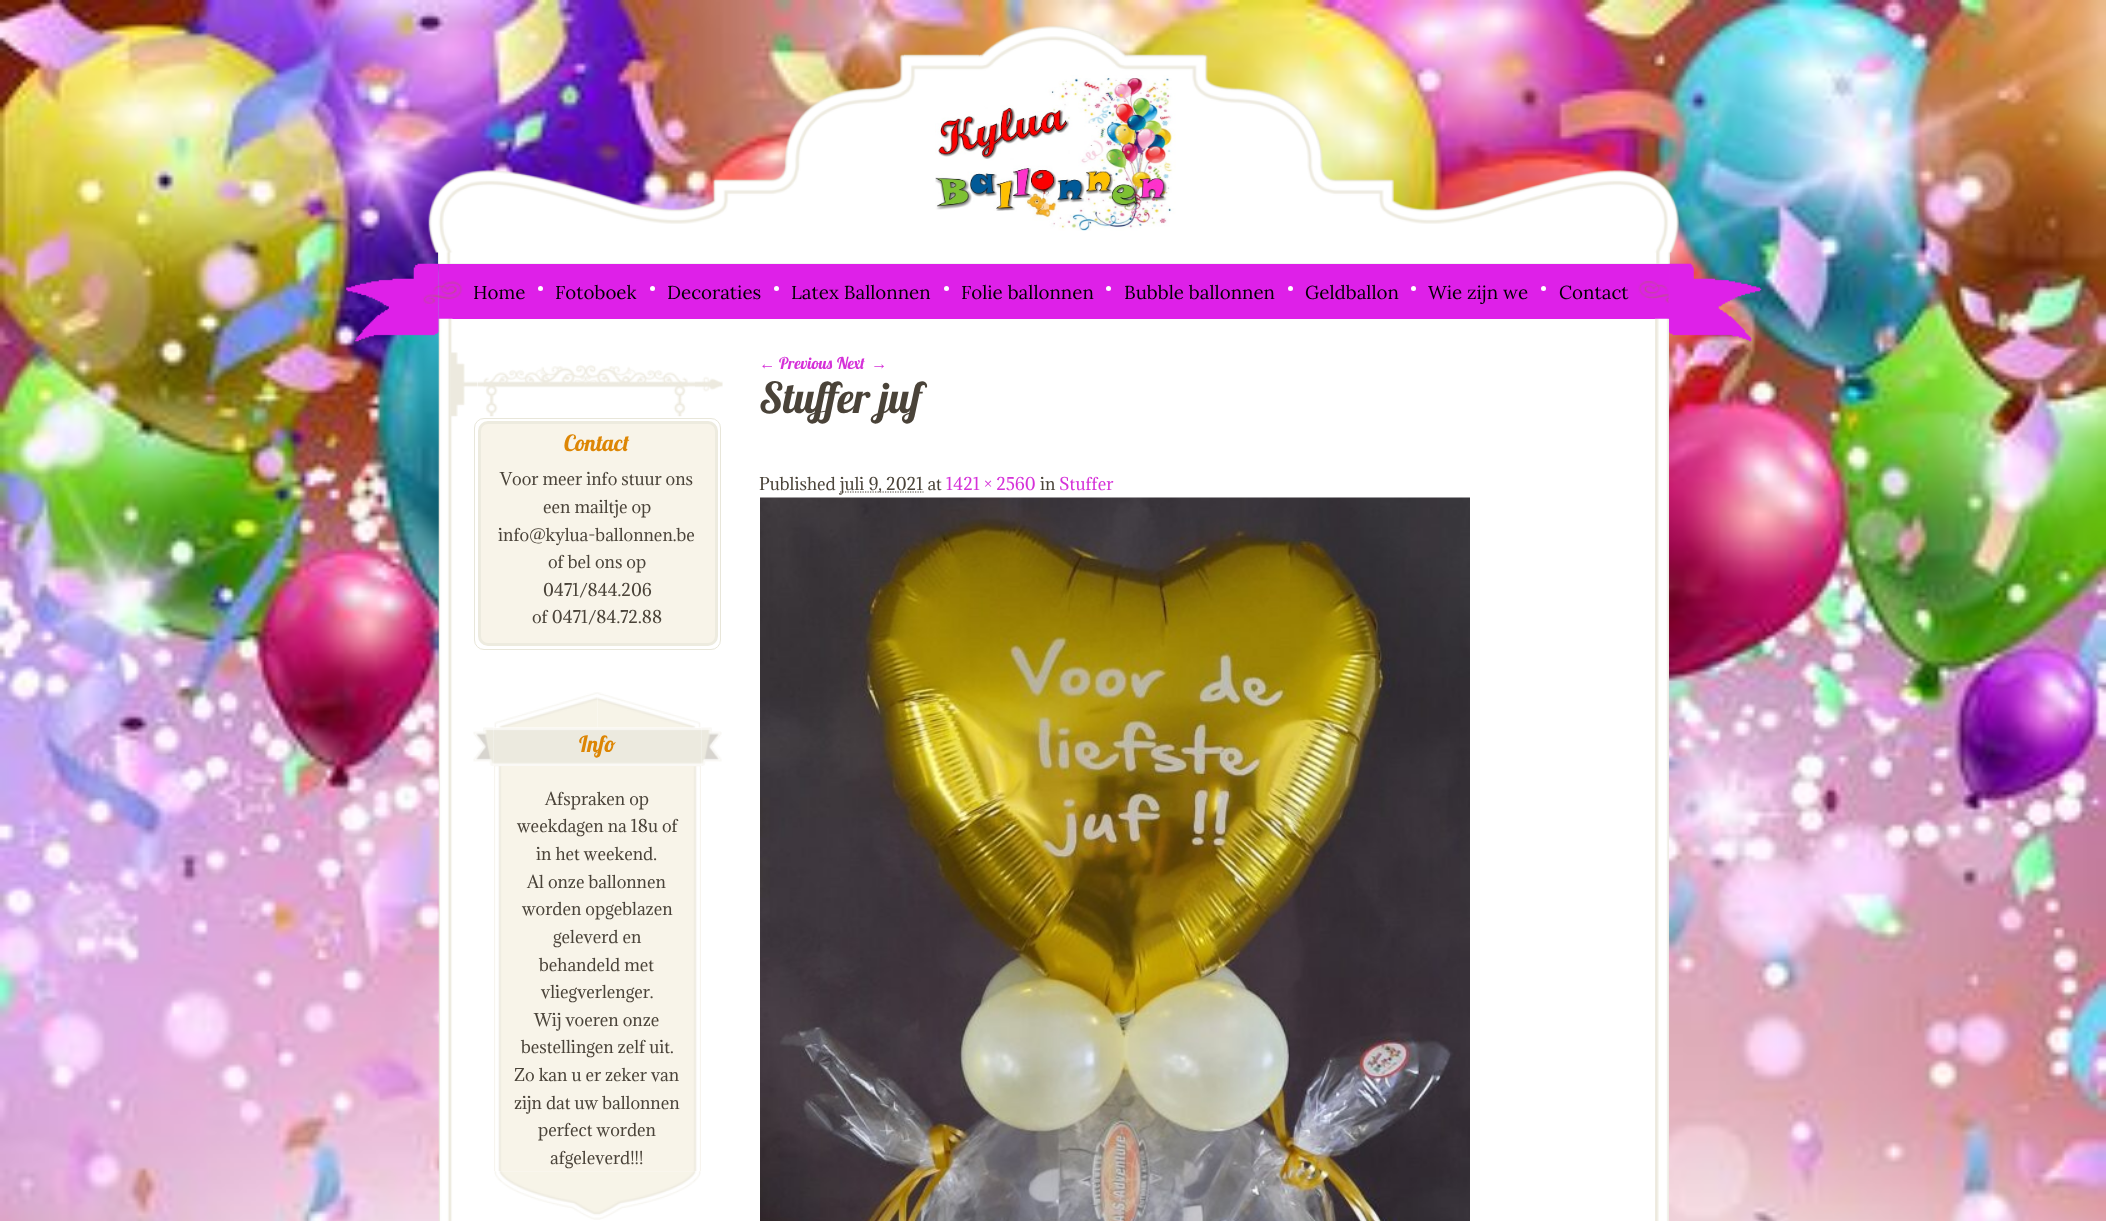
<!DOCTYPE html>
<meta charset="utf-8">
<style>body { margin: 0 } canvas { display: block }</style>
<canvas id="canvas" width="2106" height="1221"></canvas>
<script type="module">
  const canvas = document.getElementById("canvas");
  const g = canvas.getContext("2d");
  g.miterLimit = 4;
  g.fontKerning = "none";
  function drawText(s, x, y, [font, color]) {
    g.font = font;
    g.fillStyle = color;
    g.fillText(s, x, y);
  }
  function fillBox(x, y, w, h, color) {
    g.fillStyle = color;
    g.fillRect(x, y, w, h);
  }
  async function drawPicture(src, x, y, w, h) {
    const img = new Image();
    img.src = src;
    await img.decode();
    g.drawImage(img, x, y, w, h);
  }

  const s1 = ["18.75px Lora", "#000000"];
  const s2 = ["22.5px Lobster", "#DD8604"];
  const s3 = ["16.25px Adamina", "#4A4339"];
  const s4 = ["16.25px Liberation Serif", "#D531D8"];
  const s5 = ["16.25px Lobster", "#D531D8"];
  const s6 = ["42.5px Lobster", "#4A4339"];
  const s7 = ["16.25px Adamina", "#D531D8"];

  fillBox(0, 0, 2106, 1221, "#FFFFFF");
  await drawPicture("pic1.png", 0, 0, 2106, 1221);
  fillBox(438, 252, 1232, 12, "#FFFFFF");
  await drawPicture("pic2.png", 438, 251, 1232, 13);
  await drawPicture("pic3.png", 428, 25, 1251, 228);
  await drawPicture("pic4.png", 935, 75, 241, 156);
  await drawPicture("pic5.png", 438, 263, 1231, 56);
  await drawPicture("pic6.png", 346, 263, 93, 79);
  fillBox(439, 264, 1230, 55, "#DE20E8");
  await drawPicture("pic7.png", 423, 281, 40, 23);
  drawText("Home", 473, 299, s1);
  g.fillStyle = "#FFFFFF";
  g.beginPath();
  g.arc(540.5, 288.5, 2.5, 0, Math.PI * 2);
  g.fill();
  drawText("Fotoboek", 555, 299, s1);
  g.fillStyle = "#FFFFFF";
  g.beginPath();
  g.arc(652.5, 288.5, 2.5, 0, Math.PI * 2);
  g.fill();
  drawText("Decoraties", 667, 299, s1);
  g.fillStyle = "#FFFFFF";
  g.beginPath();
  g.arc(776.5, 288.5, 2.5, 0, Math.PI * 2);
  g.fill();
  drawText("Latex Ballonnen", 791, 299, s1);
  g.fillStyle = "#FFFFFF";
  g.beginPath();
  g.arc(946.5, 288.5, 2.5, 0, Math.PI * 2);
  g.fill();
  drawText("Folie ballonnen", 961, 299, s1);
  g.fillStyle = "#FFFFFF";
  g.beginPath();
  g.arc(1108.5, 288.5, 2.5, 0, Math.PI * 2);
  g.fill();
  drawText("Bubble ballonnen", 1124, 299, s1);
  g.fillStyle = "#FFFFFF";
  g.beginPath();
  g.arc(1290.5, 288.5, 2.5, 0, Math.PI * 2);
  g.fill();
  drawText("Geldballon", 1305, 299, s1);
  g.fillStyle = "#FFFFFF";
  g.beginPath();
  g.arc(1413.5, 288.5, 2.5, 0, Math.PI * 2);
  g.fill();
  drawText("Wie zijn we", 1428, 299, s1);
  g.fillStyle = "#FFFFFF";
  g.beginPath();
  g.arc(1543.5, 288.5, 2.5, 0, Math.PI * 2);
  g.fill();
  drawText("Contact", 1559, 299, s1);
  await drawPicture("pic8.png", 1638, 281, 31, 22);
  await drawPicture("pic9.png", 1668, 263, 94, 79);
  fillBox(452, 319, 1217, 902, "#FFFFFF");
  await drawPicture("pic10.png", 438, 318, 1231, 903);
  await drawPicture("pic11.png", 451, 352, 272, 65);
  g.fillStyle = "#F8F4E9";
  g.beginPath();
  g.roundRect(479.5, 422.5, 237, 222, 8.5);
  g.fill();
  g.strokeStyle = "#EDEBDF";
  g.lineWidth = 3;
  g.stroke();
  g.beginPath();
  g.roundRect(474.5, 418.5, 246, 231, 9.5);
  g.strokeStyle = "#E8E6D9";
  g.lineWidth = 1;
  g.stroke();
  drawText("Contact", 564, 451, s2);
  drawText("Voor meer info stuur ons", 500, 485, s3);
  drawText("een mailtje op", 543, 513, s3);
  drawText("info@kylua-ballonnen.be", 498, 541, s3);
  drawText("of bel ons op", 548, 568, s3);
  drawText("0471/844.206", 543, 596, s3);
  drawText("of 0471/84.72.88", 532, 623, s3);
  await drawPicture("pic12.png", 494, 692, 207, 36);
  fillBox(494, 766, 207, 405, "#F8F4E9");
  await drawPicture("pic13.png", 494, 766, 207, 405);
  await drawPicture("pic14.png", 473, 727, 249, 39);
  drawText("Info", 579, 752, s2);
  drawText("Afspraken op", 545, 805, s3);
  drawText("weekdagen na 18u of", 517, 832, s3);
  drawText("in het weekend.", 536, 860, s3);
  drawText("Al onze ballonnen", 527, 888, s3);
  drawText("worden opgeblazen", 522, 915, s3);
  drawText("geleverd en", 553, 943, s3);
  drawText("behandeld met", 539, 971, s3);
  drawText("vliegverlenger.", 541, 998, s3);
  drawText("Wij voeren onze", 534, 1026, s3);
  drawText("bestellingen zelf uit.", 521, 1053, s3);
  drawText("Zo kan u er zeker van", 514, 1081, s3);
  drawText("zijn dat uw ballonnen", 514, 1109, s3);
  drawText("perfect worden", 538, 1136, s3);
  drawText("afgeleverd!!!", 550, 1164, s3);
  await drawPicture("pic15.png", 494, 1171, 207, 49);
  drawText("←", 759, 369, s4);
  drawText("Previous", 779, 369, s5);
  drawText("Next", 837, 369, s5);
  drawText("→", 871, 369, s4);
  drawText("Stuffer juf", 759, 413, s6);
  drawText("Published", 759, 490, s3);
  g.beginPath();
  g.moveTo(840, 492);
  g.lineTo(923.5, 492);
  g.strokeStyle = "#4A4339";
  g.lineWidth = 1.2;
  g.setLineDash([1.25, 1.25]);
  g.stroke();
  drawText("juli 9, 2021 at", 840, 490, s3);
  drawText("1421 × 2560", 946, 490, s7);
  drawText("in", 1040, 490, s3);
  drawText("Stuffer", 1059, 490, s7);
  await drawPicture("pic16.png", 760, 497, 710, 724);
</script>
